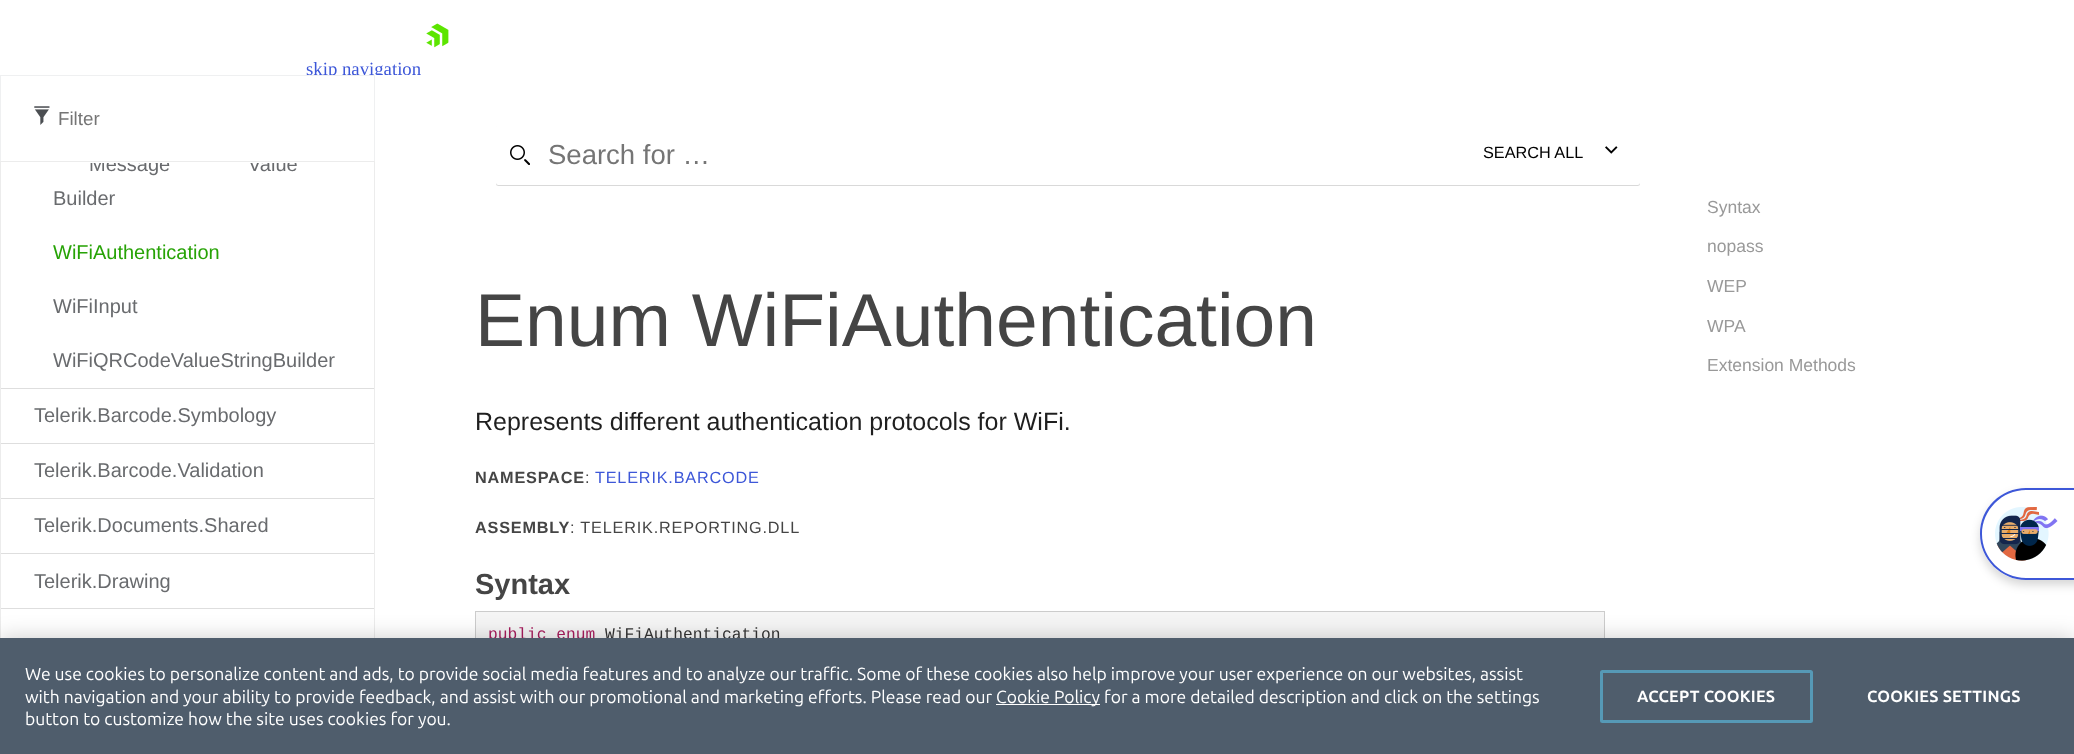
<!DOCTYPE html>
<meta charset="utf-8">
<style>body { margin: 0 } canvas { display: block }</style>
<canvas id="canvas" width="2074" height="754"></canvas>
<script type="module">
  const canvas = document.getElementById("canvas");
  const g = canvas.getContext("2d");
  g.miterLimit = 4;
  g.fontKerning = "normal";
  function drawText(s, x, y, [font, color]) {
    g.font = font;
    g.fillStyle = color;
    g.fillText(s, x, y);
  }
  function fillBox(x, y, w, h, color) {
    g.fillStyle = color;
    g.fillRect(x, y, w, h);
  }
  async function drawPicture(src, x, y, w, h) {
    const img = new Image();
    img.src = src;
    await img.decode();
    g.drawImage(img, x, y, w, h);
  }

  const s1 = ["18.75px Liberation Serif", "#3D57D8"];
  const s2 = ["18.75px Liberation Sans", "#757575"];
  const s3 = ["20px Liberation Sans", "#696B6E"];
  const s4 = ["20px Liberation Sans", "#27A306"];
  const s5 = ["27.5px Liberation Sans", "#757575"];
  const s6 = ["16.25px Liberation Sans", "#000000"];
  const s7 = ["75px Liberation Sans", "#454545"];
  const s8 = ["25px Liberation Sans", "#1F1F1F"];
  const s9 = ["bold 16.25px Liberation Sans", "#454545"];
  const s10 = ["16.25px Liberation Sans", "#454545"];
  const s11 = ["16.25px Liberation Sans", "#3D57D8"];
  const s12 = ["bold 29px Liberation Sans", "#454545"];
  const s13 = ["16.25px Liberation Mono", "#A71D5D"];
  const s14 = ["16.25px Liberation Mono", "#333333"];
  const s15 = ["17.5px Liberation Sans", "#999999"];
  const s16 = ["17.5px Ubuntu", "#FFFFFF"];
  const s17 = ["bold 16.25px Ubuntu", "#FFFFFF"];

  fillBox(0, 0, 2074, 754, "#FFFFFF");
  await drawPicture("pic1.png", 426, 23, 23, 25);
  g.save();
  g.beginPath();
  g.rect(0, 0, 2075, 75);
  g.clip();
  drawText("skip navigation", 306, 75, s1);
  g.restore();
  fillBox(0, 75, 375, 1, "#EFF0F1");
  fillBox(374, 75, 1, 86, "#EFF0F1");
  fillBox(0, 75, 1, 86, "#EFF0F1");
  await drawPicture("pic2.png", 34, 106, 16, 19);
  drawText("Filter", 58, 125, s2);
  g.strokeStyle = "#ECECEC";
  g.strokeRect(0.5, 161.5, 374, 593);
  fillBox(1, 388, 373, 1, "#DEDEDE");
  g.save();
  g.beginPath();
  g.rect(1, 163, 373, 591);
  g.clip();
  drawText("Message", 89, 171, s3);
  drawText("Value", 248, 171, s3);
  g.restore();
  drawText("Builder", 53, 205, s3);
  drawText("WiFiAuthentication", 53, 259, s4);
  drawText("WiFiInput", 53, 313, s3);
  drawText("WiFiQRCodeValueStringBuilder", 53, 367, s3);
  fillBox(1, 443, 373, 1, "#DEDEDE");
  drawText("Telerik.Barcode.Symbology", 34, 422, s3);
  fillBox(1, 498, 373, 1, "#DEDEDE");
  drawText("Telerik.Barcode.Validation", 34, 477, s3);
  fillBox(1, 553, 373, 1, "#DEDEDE");
  drawText("Telerik.Documents.Shared", 34, 532, s3);
  fillBox(1, 608, 373, 1, "#DEDEDE");
  drawText("Telerik.Drawing", 34, 588, s3);
  g.save();
  g.beginPath();
  g.moveTo(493, 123);
  g.lineTo(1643, 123);
  g.lineTo(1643, 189);
  g.lineTo(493, 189);
  g.closePath();
  g.moveTo(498.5, 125);
  g.lineTo(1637.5, 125);
  g.bezierCurveTo(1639, 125, 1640, 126, 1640, 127.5);
  g.lineTo(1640, 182.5);
  g.bezierCurveTo(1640, 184, 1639, 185, 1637.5, 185);
  g.lineTo(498.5, 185);
  g.bezierCurveTo(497, 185, 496, 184, 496, 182.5);
  g.lineTo(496, 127.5);
  g.bezierCurveTo(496, 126, 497, 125, 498.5, 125);
  g.closePath();
  g.clip("evenodd");
  g.fillStyle = "rgba(0, 0, 0, 0.15)";
  g.filter = "blur(0.5px)";
  g.beginPath();
  g.roundRect(496, 126, 1144, 60, 2.5);
  g.fill();
  g.filter = "none";
  g.restore();
  await drawPicture("pic3.png", 510, 145, 20, 20);
  drawText("Search for …", 548, 164, s5);
  drawText("SEARCH ALL", 1483, 158, s6);
  await drawPicture("pic4.png", 1605, 146, 13, 8);
  drawText("Enum WiFiAuthentication", 475, 346, s7);
  drawText("Represents different authentication protocols for WiFi.", 475, 430, s8);
  g.letterSpacing = "0.8px";
  drawText("NAMESPACE", 475, 483, s9);
  drawText(":", 585, 483, s10);
  drawText("TELERIK.BARCODE", 595, 483, s11);
  drawText("ASSEMBLY", 475, 533, s9);
  drawText(": TELERIK.REPORTING.DLL", 570, 533, s10);
  g.letterSpacing = "0px";
  drawText("Syntax", 475, 594, s12);
  fillBox(476, 612, 1128, 26, "#F5F5F5");
  g.strokeStyle = "#CCCCCC";
  g.strokeRect(475.5, 611.5, 1129, 49);
  drawText("public enum", 488, 639, s13);
  drawText("WiFiAuthentication", 605, 639, s14);
  drawText("Syntax", 1707, 213, s15);
  drawText("nopass", 1707, 252, s15);
  drawText("WEP", 1707, 292, s15);
  drawText("WPA", 1707, 332, s15);
  drawText("Extension Methods", 1707, 371, s15);
  g.fillStyle = "rgba(0, 0, 0, 0.16)";
  g.filter = "blur(5px)";
  g.beginPath();
  g.roundRect(1980, 493, 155, 92, 46);
  g.fill();
  g.filter = "none";
  g.fillStyle = "#FFFFFF";
  g.beginPath();
  g.moveTo(2026, 488);
  g.lineTo(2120, 488);
  g.lineTo(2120, 580);
  g.lineTo(2026, 580);
  g.bezierCurveTo(2000.5, 580, 1980, 559.5, 1980, 534);
  g.bezierCurveTo(1980, 508.5, 2000.5, 488, 2026, 488);
  g.closePath();
  g.fill();
  g.fillStyle = "#3D57D8";
  g.beginPath();
  g.moveTo(2026, 488);
  g.lineTo(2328, 488);
  g.lineTo(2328, 580);
  g.lineTo(2026, 580);
  g.bezierCurveTo(2001, 580, 1980, 559, 1980, 534);
  g.bezierCurveTo(1980, 508, 2001, 488, 2026, 488);
  g.closePath();
  g.moveTo(2026, 490);
  g.lineTo(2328, 490);
  g.lineTo(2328, 578);
  g.lineTo(2026, 578);
  g.bezierCurveTo(2002, 578, 1982, 558, 1982, 534);
  g.bezierCurveTo(1982, 510, 2002, 490, 2026, 490);
  g.closePath();
  g.fill("evenodd");
  await drawPicture("pic5.png", 1995, 507, 63, 54);
  g.fillStyle = "rgba(0, 0, 0, 0.2)";
  g.filter = "blur(11px)";
  g.beginPath();
  g.rect(0, 638, 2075, 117);
  g.fill();
  g.filter = "none";
  fillBox(0, 638, 2074, 116, "#4F5D6C");
  drawText("We use cookies to personalize content and ads, to provide social media features and to analyze our traffic. Some of these cookies also help improve your user experience on our websites, assist", 25, 680, s16);
  drawText("with navigation and your ability to provide feedback, and assist with our promotional and marketing efforts. Please read our", 25, 703, s16);
  fillBox(996, 704, 104, 1, "#FFFFFF");
  drawText("Cookie Policy for a more detailed description and click on the settings", 996, 703, s16);
  drawText("button to customize how the site uses cookies for you.", 25, 725, s16);
  g.beginPath();
  g.roundRect(1601.5, 671.5, 210, 50, 1);
  g.strokeStyle = "#5699B6";
  g.lineWidth = 3;
  g.stroke();
  g.letterSpacing = "0.2px";
  drawText("ACCEPT COOKIES", 1637, 702, s17);
  drawText("COOKIES SETTINGS", 1867, 702, s17);
</script>
